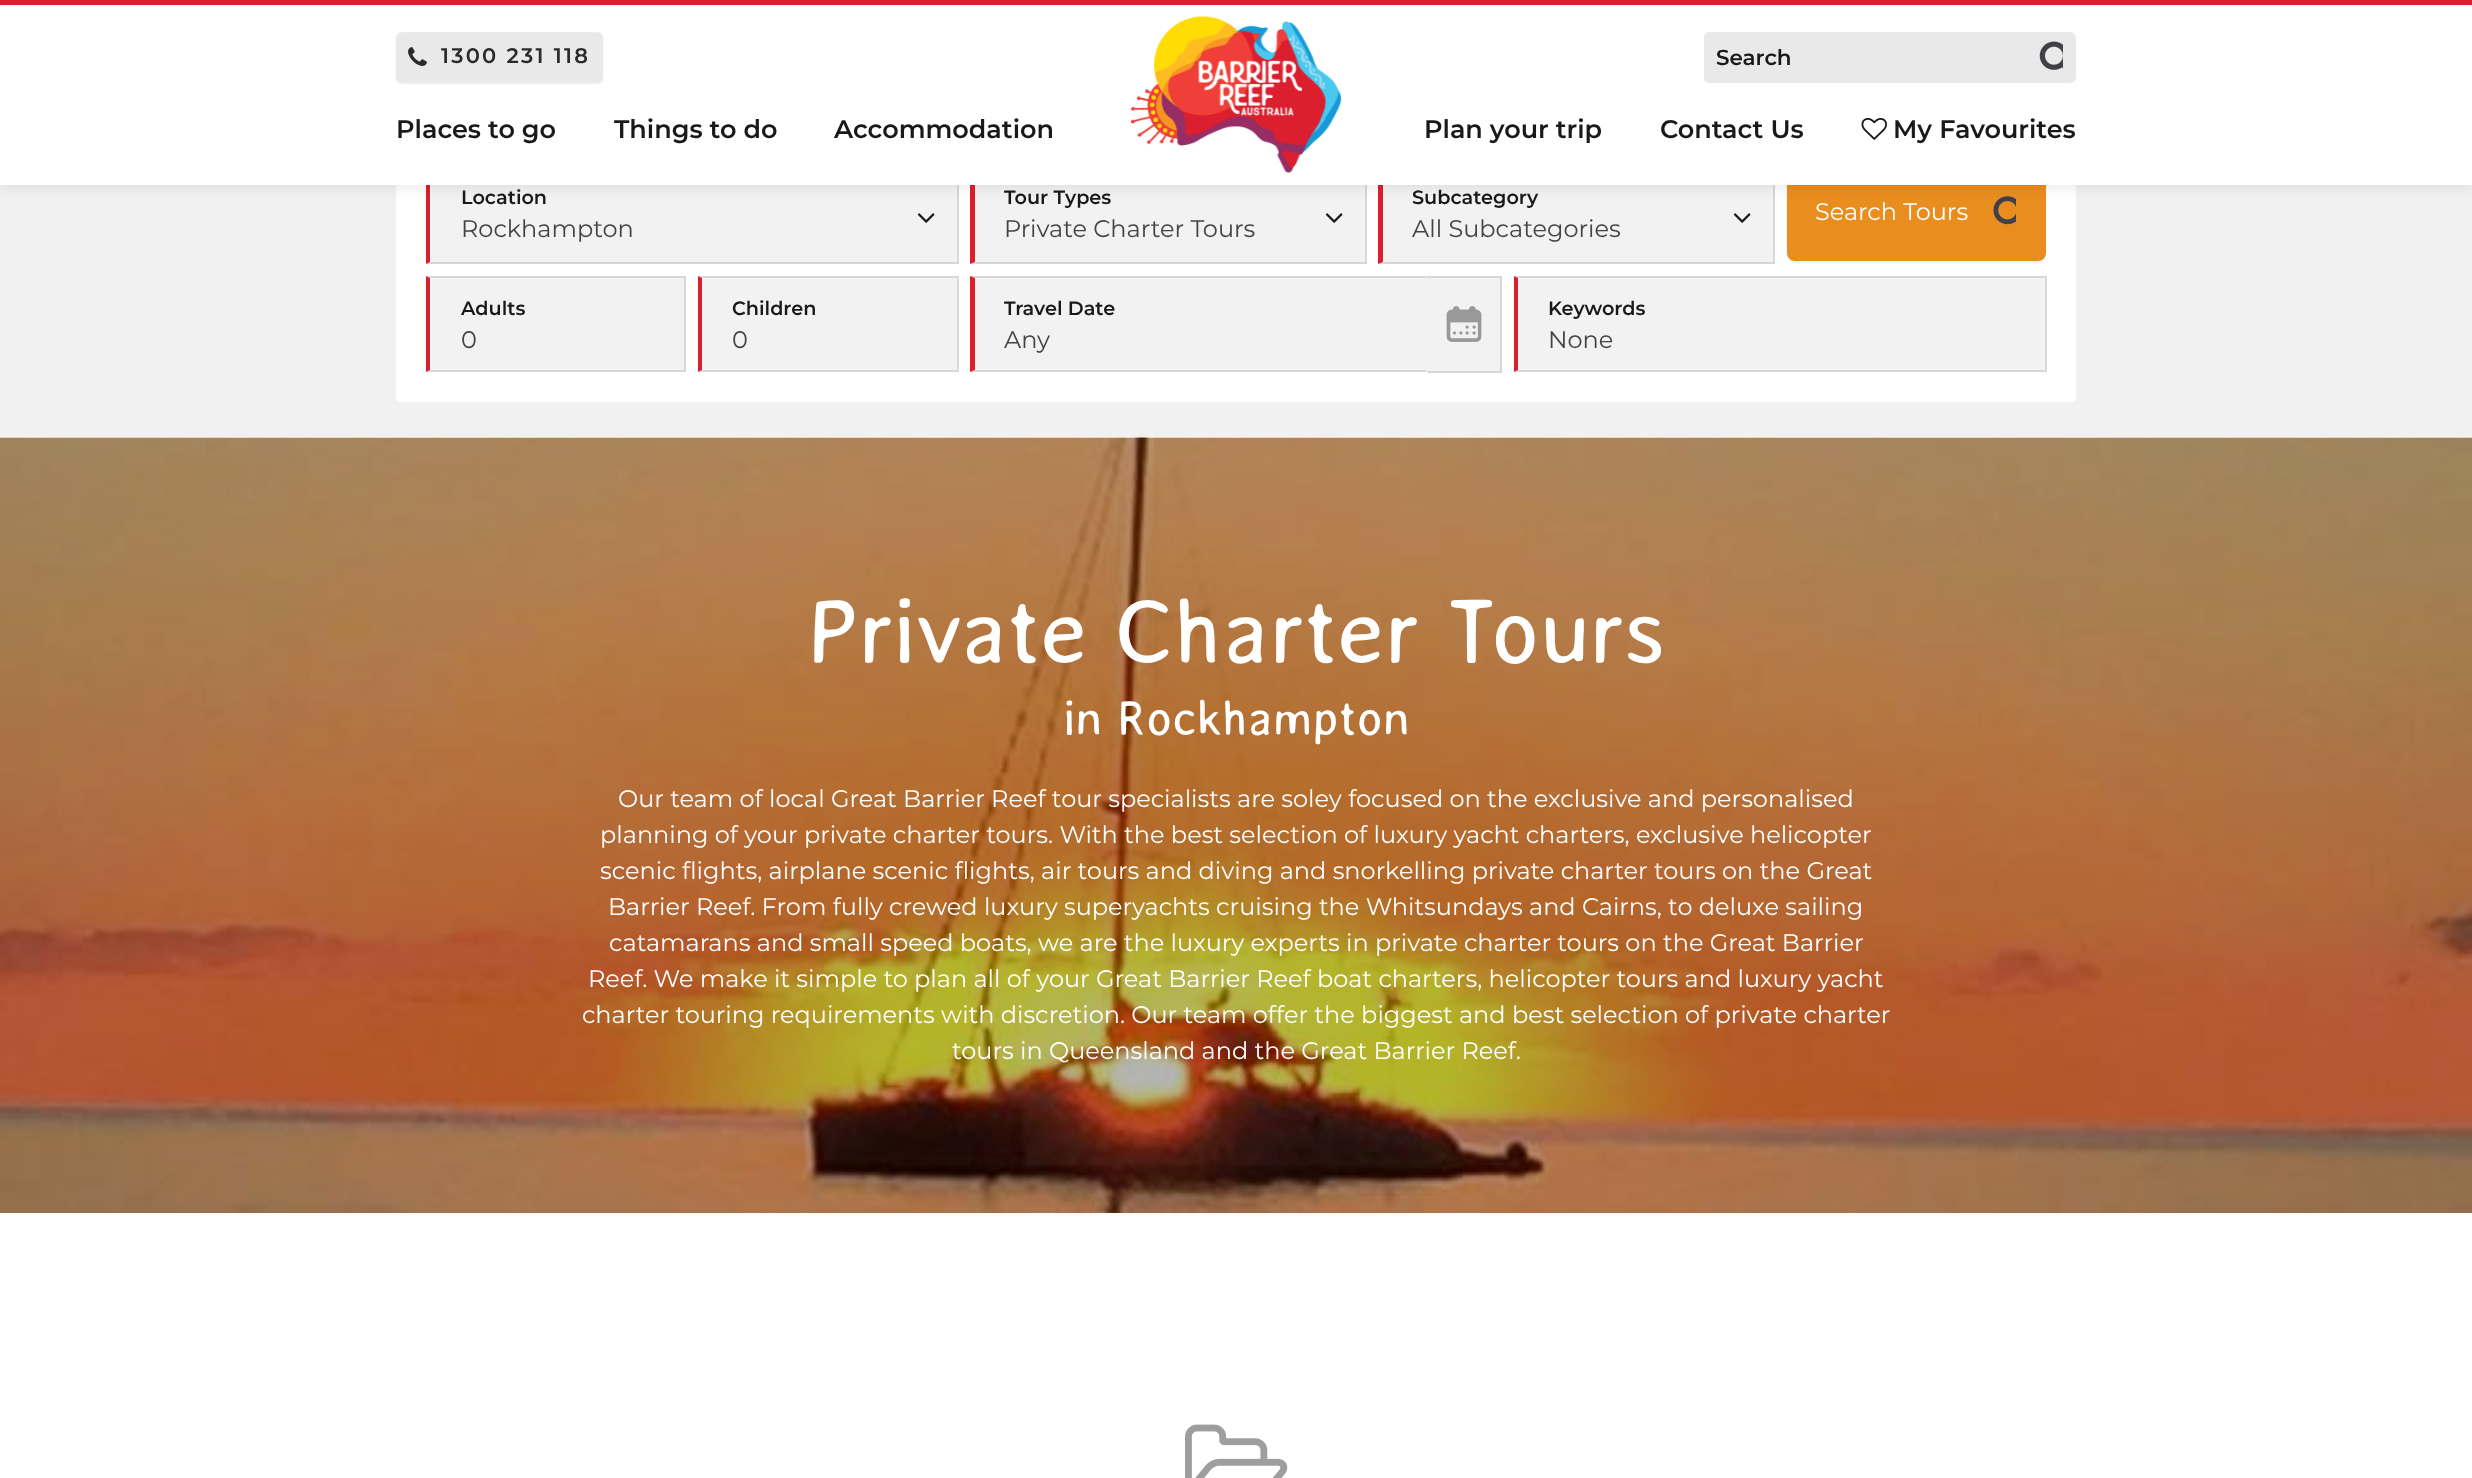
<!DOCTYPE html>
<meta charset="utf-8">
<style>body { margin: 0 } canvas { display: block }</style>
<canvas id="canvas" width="2472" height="1478"></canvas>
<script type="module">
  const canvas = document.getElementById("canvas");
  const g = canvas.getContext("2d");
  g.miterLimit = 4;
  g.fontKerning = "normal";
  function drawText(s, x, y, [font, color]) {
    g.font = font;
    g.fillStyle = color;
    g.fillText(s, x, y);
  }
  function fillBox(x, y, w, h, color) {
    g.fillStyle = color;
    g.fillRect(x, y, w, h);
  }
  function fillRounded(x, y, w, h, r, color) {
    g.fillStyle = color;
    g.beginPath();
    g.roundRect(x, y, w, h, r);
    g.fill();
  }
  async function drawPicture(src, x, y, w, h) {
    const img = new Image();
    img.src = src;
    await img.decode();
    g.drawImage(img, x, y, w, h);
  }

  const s1 = ["600 21px Montserrat", "#292B2C"];
  const s2 = ["600 25.5px Montserrat", "#191919"];
  const s3 = ["600 21.5px Montserrat", "#191919"];
  const s4 = ["600 19.25px Montserrat", "#191919"];
  const s5 = ["24px Montserrat", "#444444"];
  const s6 = ["24px Montserrat", "#FFFFFF"];
  const s7 = ["90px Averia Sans", "#FFFFFF"];
  const s8 = ["48px Averia Sans", "#FFFFFF"];

  fillBox(0, 0, 2472, 1478, "#FFFFFF");
  fillBox(0, 185, 2472, 253, "#F1F1F1");
  fillRounded(396, 135, 1680, 267, 4, "#FFFFFF");
  fillBox(431, 185, 526, 77, "#F2F2F2");
  fillBox(957, 185, 2, 79, "#D7D7D7");
  g.beginPath();
  g.moveTo(958, 264);
  g.lineTo(426, 264);
  g.lineTo(430, 262);
  g.lineTo(957, 262);
  g.closePath();
  g.fill();
  g.fillStyle = "#DC1F2E";
  g.beginPath();
  g.moveTo(426, 264);
  g.lineTo(426, 165);
  g.lineTo(430, 166);
  g.lineTo(430, 262);
  g.closePath();
  g.fill();
  fillBox(975, 185, 390, 77, "#F2F2F2");
  fillBox(1365, 185, 2, 79, "#D7D7D7");
  g.beginPath();
  g.moveTo(1366, 264);
  g.lineTo(970, 264);
  g.lineTo(975, 262);
  g.lineTo(1365, 262);
  g.closePath();
  g.fill();
  g.fillStyle = "#DC1F2E";
  g.beginPath();
  g.moveTo(970, 264);
  g.lineTo(970, 165);
  g.lineTo(975, 166);
  g.lineTo(975, 262);
  g.closePath();
  g.fill();
  fillBox(1383, 185, 390, 77, "#F2F2F2");
  fillBox(1773, 185, 2, 79, "#D7D7D7");
  g.beginPath();
  g.moveTo(1774, 264);
  g.lineTo(1378, 264);
  g.lineTo(1383, 262);
  g.lineTo(1773, 262);
  g.closePath();
  g.fill();
  g.fillStyle = "#DC1F2E";
  g.beginPath();
  g.moveTo(1378, 264);
  g.lineTo(1378, 165);
  g.lineTo(1383, 166);
  g.lineTo(1383, 262);
  g.closePath();
  g.fill();
  g.fillStyle = "rgba(0, 0, 0, 0.07)";
  g.filter = "blur(1px)";
  g.beginPath();
  g.roundRect(1787, 167, 259, 96, 8);
  g.fill();
  g.filter = "none";
  fillRounded(1787, 165, 259, 96, 8, "#EA8D1F");
  await drawPicture("pic6.png", 1993, 196, 23, 29);
  g.fillStyle = "rgba(0, 0, 0, 0.1)";
  g.filter = "blur(7.5px)";
  g.beginPath();
  g.rect(0, 2, 2472, 184);
  g.fill();
  g.filter = "none";
  fillBox(0, 5, 2472, 180, "#FFFFFF");
  fillBox(0, 0, 2472, 5, "#DC1F2E");
  g.fillStyle = "rgba(0, 0, 0, 0.07)";
  g.filter = "blur(1px)";
  g.beginPath();
  g.roundRect(396, 33, 207, 51, 6);
  g.fill();
  g.filter = "none";
  fillRounded(396, 32, 207, 51, 6, "#E9E9E9");
  g.fillStyle = "rgba(255, 255, 255, 0.15)";
  g.beginPath();
  g.moveTo(402, 33);
  g.lineTo(597, 33);
  g.bezierCurveTo(600, 33, 603, 36, 603, 39);
  g.bezierCurveTo(603, 36, 602, 33, 598, 32);
  g.lineTo(402, 32);
  g.bezierCurveTo(398, 32, 396, 35, 396, 39);
  g.bezierCurveTo(396, 36, 399, 33, 402, 33);
  g.closePath();
  g.fill();
  await drawPicture("pic1.png", 408, 47, 19, 19);
  g.letterSpacing = "2.25px";
  drawText("1300 231 118", 441, 63, s1);
  g.letterSpacing = "0px";
  drawText("Places to go", 396, 138, s2);
  drawText("Things to do", 614, 138, s2);
  drawText("Accommodation", 834, 138, s2);
  await drawPicture("pic2.png", 1131, 16, 210, 157);
  g.fillStyle = "#E9E9E9";
  g.beginPath();
  g.roundRect(1704, 32, 321, 51, [5, 0, 0, 5]);
  g.fill();
  drawText("Search", 1716, 65, s3);
  g.fillStyle = "#E9E9E9";
  g.beginPath();
  g.roundRect(2025, 32, 51, 51, [0, 6, 6, 0]);
  g.fill();
  await drawPicture("pic3.png", 2039, 41, 24, 29);
  drawText("Plan your trip", 1424, 138, s2);
  drawText("Contact Us", 1660, 138, s2);
  await drawPicture("pic4.png", 1861, 118, 26, 22);
  drawText("My Favourites", 1893, 138, s2);
  drawText("Location", 461, 204, s4);
  await drawPicture("pic5.png", 917, 213, 18, 10);
  drawText("Rockhampton", 461, 237, s5);
  drawText("Tour Types", 1004, 204, s4);
  await drawPicture("pic5.png", 1325, 213, 18, 10);
  drawText("Private Charter Tours", 1004, 237, s5);
  drawText("Subcategory", 1412, 204, s4);
  await drawPicture("pic5.png", 1733, 213, 18, 10);
  drawText("All Subcategories", 1412, 237, s5);
  drawText("Search Tours", 1815, 220, s6);
  fillBox(431, 278, 253, 92, "#F2F2F2");
  drawText("Adults", 461, 315, s4);
  g.fillStyle = "#D7D7D7";
  g.beginPath();
  g.moveTo(426, 276);
  g.lineTo(686, 276);
  g.lineTo(684, 278);
  g.lineTo(430, 278);
  g.closePath();
  g.fill();
  fillBox(684, 276, 2, 96, "#D7D7D7");
  g.beginPath();
  g.moveTo(686, 372);
  g.lineTo(426, 372);
  g.lineTo(430, 370);
  g.lineTo(684, 370);
  g.closePath();
  g.fill();
  g.fillStyle = "#DC1F2E";
  g.beginPath();
  g.moveTo(426, 372);
  g.lineTo(426, 276);
  g.lineTo(430, 278);
  g.lineTo(430, 370);
  g.closePath();
  g.fill();
  drawText("0", 461, 348, s5);
  fillBox(702, 278, 255, 92, "#F2F2F2");
  drawText("Children", 732, 315, s4);
  g.fillStyle = "#D7D7D7";
  g.beginPath();
  g.moveTo(698, 276);
  g.lineTo(958, 276);
  g.lineTo(957, 278);
  g.lineTo(702, 278);
  g.closePath();
  g.fill();
  fillBox(957, 276, 2, 96, "#D7D7D7");
  g.beginPath();
  g.moveTo(958, 372);
  g.lineTo(698, 372);
  g.lineTo(702, 370);
  g.lineTo(957, 370);
  g.closePath();
  g.fill();
  g.fillStyle = "#DC1F2E";
  g.beginPath();
  g.moveTo(698, 372);
  g.lineTo(698, 276);
  g.lineTo(702, 278);
  g.lineTo(702, 370);
  g.closePath();
  g.fill();
  drawText("0", 732, 348, s5);
  fillBox(971, 276, 529, 96, "#F2F2F2");
  drawText("Travel Date", 1004, 315, s4);
  g.fillStyle = "#D7D7D7";
  g.beginPath();
  g.moveTo(970, 276);
  g.lineTo(1426, 276);
  g.lineTo(1426, 278);
  g.lineTo(975, 278);
  g.closePath();
  g.fill();
  g.beginPath();
  g.moveTo(1426, 372);
  g.lineTo(970, 372);
  g.lineTo(975, 370);
  g.lineTo(1426, 370);
  g.closePath();
  g.fill();
  g.fillStyle = "#DC1F2E";
  g.beginPath();
  g.moveTo(970, 372);
  g.lineTo(970, 276);
  g.lineTo(975, 278);
  g.lineTo(975, 370);
  g.closePath();
  g.fill();
  drawText("Any", 1004, 348, s5);
  fillBox(1427, 276, 75, 2, "#D7D7D7");
  fillBox(1500, 276, 2, 96, "#D7D7D7");
  fillBox(1427, 371, 75, 2, "#D7D7D7");
  await drawPicture("pic7.png", 1446, 306, 36, 36);
  fillBox(1518, 278, 527, 93, "#F2F2F2");
  drawText("Keywords", 1548, 315, s4);
  g.fillStyle = "#D7D7D7";
  g.beginPath();
  g.moveTo(1514, 276);
  g.lineTo(2046, 276);
  g.lineTo(2044, 278);
  g.lineTo(1518, 278);
  g.closePath();
  g.fill();
  fillBox(2045, 276, 2, 96, "#D7D7D7");
  g.beginPath();
  g.moveTo(2046, 372);
  g.lineTo(1514, 372);
  g.lineTo(1518, 370);
  g.lineTo(2044, 370);
  g.closePath();
  g.fill();
  g.fillStyle = "#DC1F2E";
  g.beginPath();
  g.moveTo(1514, 372);
  g.lineTo(1514, 276);
  g.lineTo(1518, 278);
  g.lineTo(1518, 370);
  g.closePath();
  g.fill();
  drawText("None", 1548, 348, s5);
  await drawPicture("pic8.png", 0, 437, 2472, 776);
  drawText("Private Charter Tours", 807, 663, s7);
  drawText("in Rockhampton", 1063, 735, s8);
  drawText("Our team of local Great Barrier Reef tour specialists are soley focused on the exclusive and personalised", 618, 807, s6);
  drawText("planning of your private charter tours. With the best selection of luxury yacht charters, exclusive helicopter", 600, 843, s6);
  drawText("scenic flights, airplane scenic flights, air tours and diving and snorkelling private charter tours on the Great", 600, 879, s6);
  drawText("Barrier Reef. From fully crewed luxury superyachts cruising the Whitsundays and Cairns, to deluxe sailing", 608, 915, s6);
  drawText("catamarans and small speed boats, we are the luxury experts in private charter tours on the Great Barrier", 609, 951, s6);
  drawText("Reef. We make it simple to plan all of your Great Barrier Reef boat charters, helicopter tours and luxury yacht", 588, 987, s6);
  drawText("charter touring requirements with discretion. Our team offer the biggest and best selection of private charter", 582, 1023, s6);
  drawText("tours in Queensland and the Great Barrier Reef.", 952, 1059, s6);
  await drawPicture("pic9.png", 1185, 1424, 103, 54);
</script>
